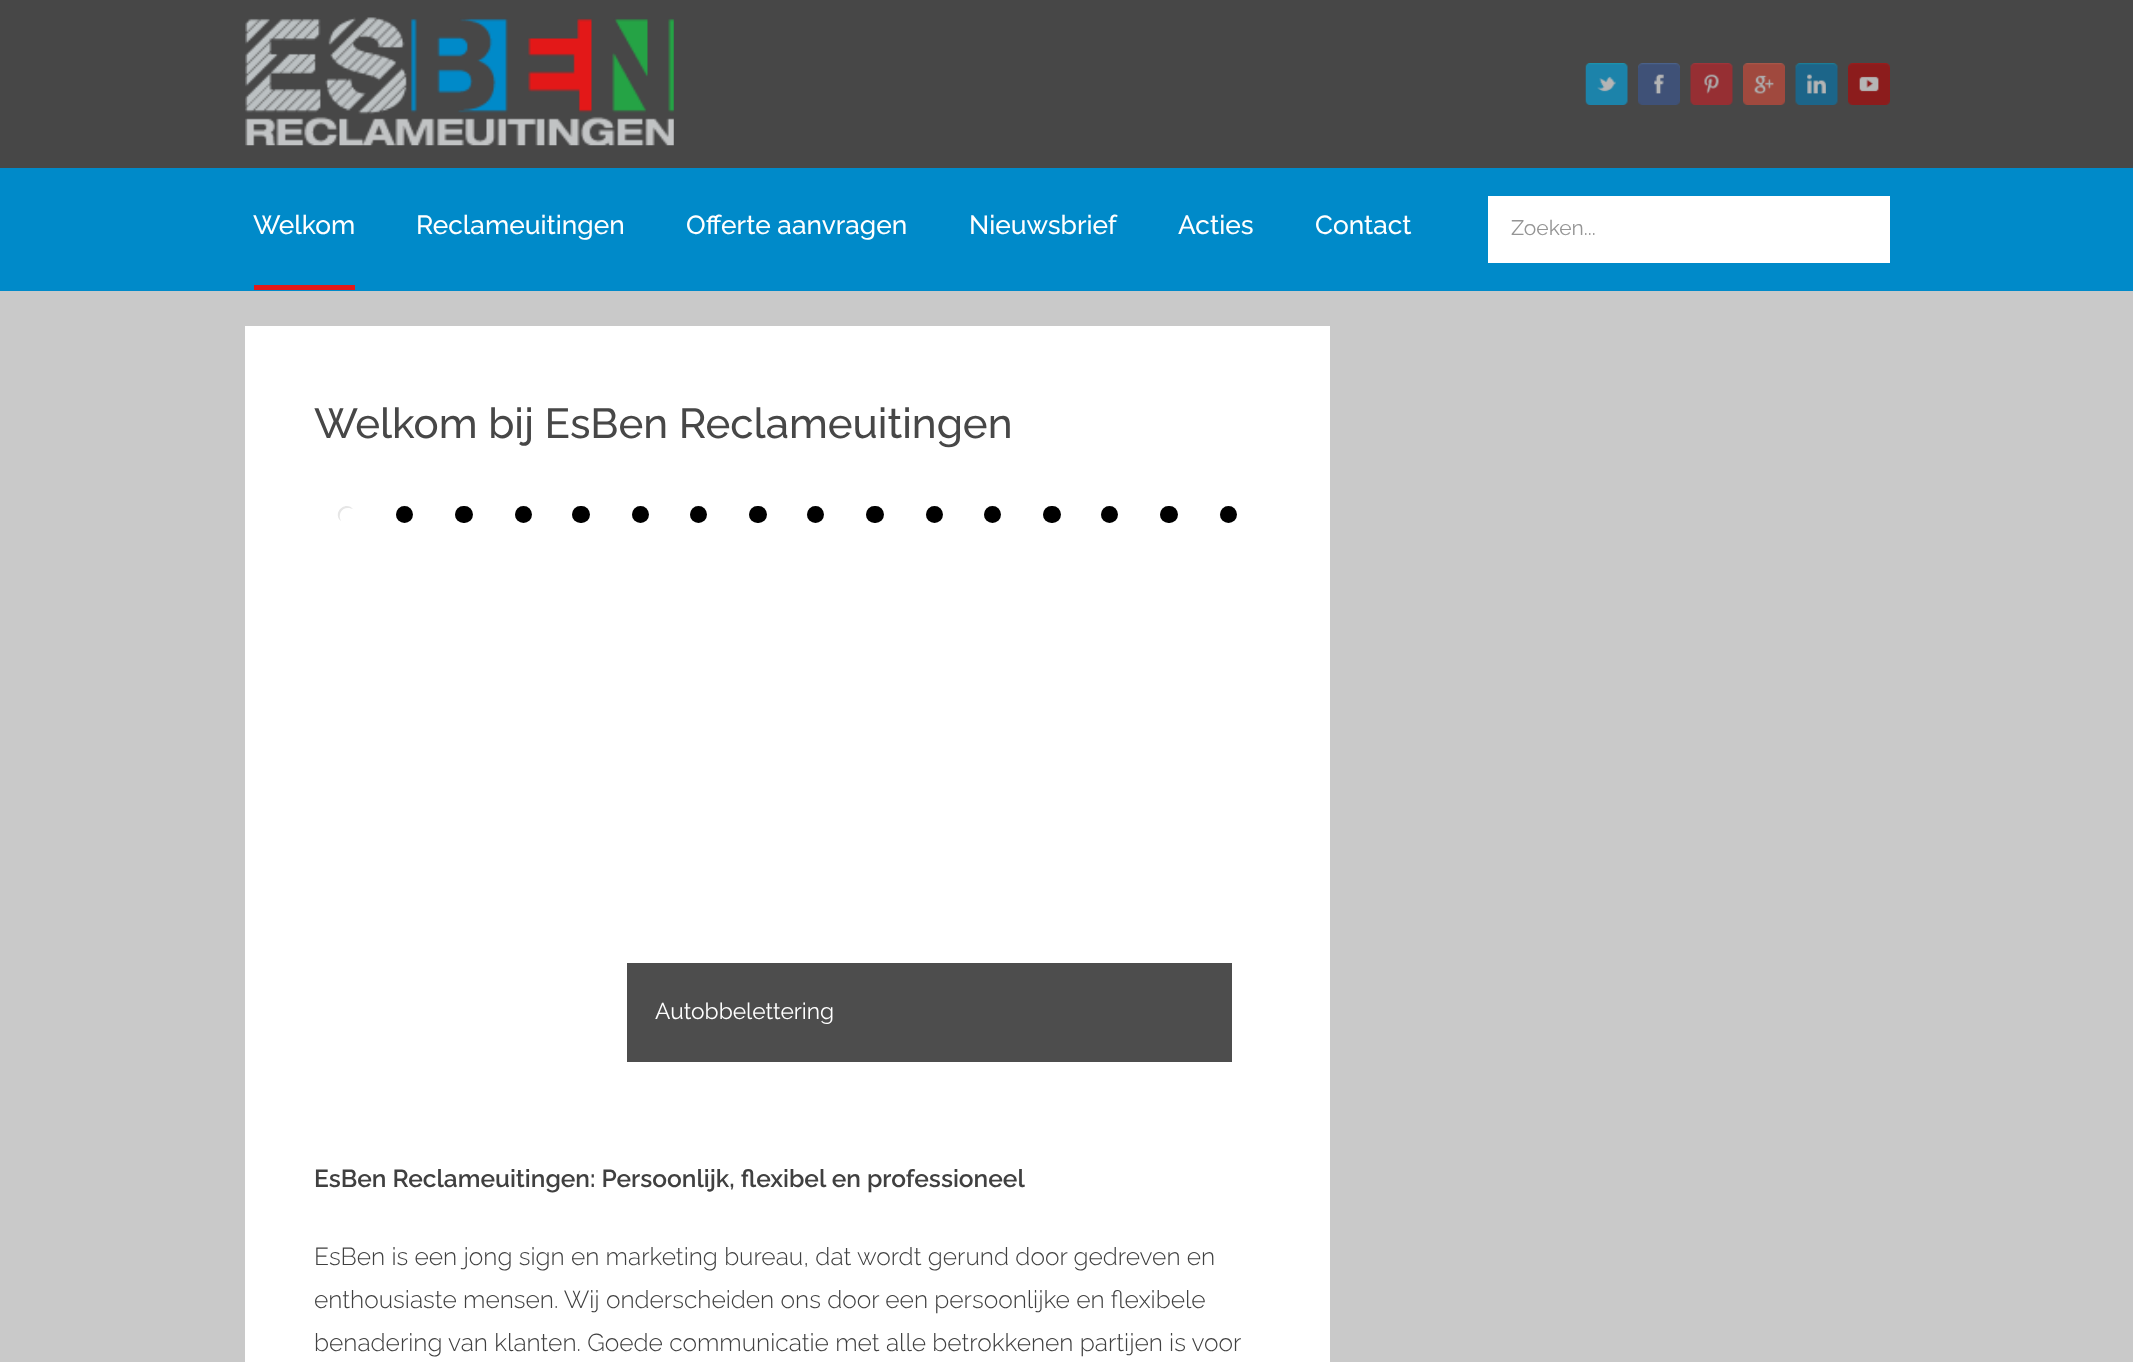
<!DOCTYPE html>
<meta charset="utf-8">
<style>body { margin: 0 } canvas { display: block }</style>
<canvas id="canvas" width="2133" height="1362"></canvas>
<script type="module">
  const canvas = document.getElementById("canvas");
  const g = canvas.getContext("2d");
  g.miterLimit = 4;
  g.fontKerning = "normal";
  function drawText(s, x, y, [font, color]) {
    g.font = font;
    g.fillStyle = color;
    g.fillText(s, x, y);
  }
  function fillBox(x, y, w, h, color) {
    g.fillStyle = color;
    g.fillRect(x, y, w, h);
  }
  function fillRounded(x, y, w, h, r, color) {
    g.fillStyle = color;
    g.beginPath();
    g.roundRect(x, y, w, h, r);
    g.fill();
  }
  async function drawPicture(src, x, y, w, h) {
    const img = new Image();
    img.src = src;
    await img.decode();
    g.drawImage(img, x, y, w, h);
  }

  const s1 = ["500 26.25px Raleway", "#FFFFFF"];
  const s2 = ["21px Raleway", "#959595"];
  const s3 = ["500 42px Raleway", "#474747"];
  const s4 = ["22.75px Raleway", "#FFFFFF"];
  const s5 = ["600 24.5px Raleway", "#404040"];
  const s6 = ["300 24.5px Raleway", "#404040"];

  fillBox(0, 0, 2133, 1362, "#C9C9C9");
  fillBox(0, 0, 2133, 168, "#474747");
  await drawPicture("pic1.png", 245, 17, 429, 129);
  await drawPicture("pic2.png", 1585, 63, 43, 42);
  await drawPicture("pic3.png", 1638, 63, 42, 42);
  await drawPicture("pic4.png", 1690, 63, 43, 42);
  await drawPicture("pic5.png", 1743, 63, 42, 42);
  await drawPicture("pic6.png", 1795, 63, 43, 42);
  await drawPicture("pic7.png", 1848, 63, 42, 42);
  fillBox(0, 168, 2133, 123, "#008AC9");
  fillBox(254, 285, 101, 5, "#E31818");
  drawText("Welkom", 253, 234, s1);
  drawText("Reclameuitingen", 416, 234, s1);
  drawText("Offerte aanvragen", 686, 234, s1);
  drawText("Nieuwsbrief", 969, 234, s1);
  drawText("Acties", 1178, 234, s1);
  drawText("Contact", 1315, 234, s1);
  fillBox(1488, 196, 402, 67, "#FFFFFF");
  drawText("Zoeken...", 1511, 235, s2);
  fillBox(245, 326, 1085, 1036, "#FFFFFF");
  drawText("Welkom bij EsBen Reclameuitingen", 314, 438, s3);
  g.fillStyle = "#E6E6E6";
  g.beginPath();
  g.moveTo(348, 508);
  g.bezierCurveTo(350, 508, 352, 508.5, 353.5, 509.5);
  g.bezierCurveTo(346, 499.5, 331.5, 512.5, 341, 521);
  g.bezierCurveTo(338, 515.5, 340.5, 508, 348, 508);
  g.closePath();
  g.fill();
  g.fillStyle = "#000000";
  g.beginPath();
  g.arc(404.5, 514.5, 8.5, 0, Math.PI * 2);
  g.fill();
  g.fillStyle = "rgba(0, 0, 0, 0.1)";
  g.beginPath();
  g.moveTo(406, 508);
  g.bezierCurveTo(408.5, 508, 410.5, 509, 412, 510.5);
  g.bezierCurveTo(411, 508.5, 409.5, 507.5, 408, 506.5);
  g.bezierCurveTo(399, 503, 392, 514.5, 399, 521);
  g.bezierCurveTo(396, 515.5, 398.5, 508, 406, 508);
  g.closePath();
  g.fill();
  fillRounded(455, 506, 18, 17, 8.5, "#000000");
  g.fillStyle = "rgba(0, 0, 0, 0.1)";
  g.beginPath();
  g.moveTo(466, 508);
  g.bezierCurveTo(468.5, 508, 470.5, 509, 472, 510.5);
  g.bezierCurveTo(469.5, 506, 463, 504.5, 458.5, 507.5);
  g.bezierCurveTo(454, 510.5, 454, 518, 458.5, 521.5);
  g.bezierCurveTo(455, 516.5, 457.5, 508, 466, 508);
  g.closePath();
  g.fill();
  g.fillStyle = "#000000";
  g.beginPath();
  g.arc(523.5, 514.5, 8.5, 0, Math.PI * 2);
  g.fill();
  g.fillStyle = "rgba(0, 0, 0, 0.1)";
  g.beginPath();
  g.moveTo(525, 508);
  g.bezierCurveTo(527.5, 508, 529.5, 509, 531, 510.5);
  g.bezierCurveTo(530, 508.5, 528.5, 507.5, 527, 506.5);
  g.bezierCurveTo(518, 503, 511, 514.5, 518, 521);
  g.bezierCurveTo(515, 515.5, 517.5, 508, 525, 508);
  g.closePath();
  g.fill();
  fillRounded(572, 506, 18, 17, 8.5, "#000000");
  g.fillStyle = "rgba(0, 0, 0, 0.1)";
  g.beginPath();
  g.moveTo(583, 508);
  g.bezierCurveTo(585.5, 508, 587.5, 509, 589, 510.5);
  g.bezierCurveTo(586.5, 506, 580, 504.5, 575.5, 507.5);
  g.bezierCurveTo(571, 510.5, 571, 518, 575.5, 521.5);
  g.bezierCurveTo(572, 516.5, 574.5, 508, 583, 508);
  g.closePath();
  g.fill();
  g.fillStyle = "#000000";
  g.beginPath();
  g.arc(640.5, 514.5, 8.5, 0, Math.PI * 2);
  g.fill();
  g.fillStyle = "rgba(0, 0, 0, 0.1)";
  g.beginPath();
  g.moveTo(642, 508);
  g.bezierCurveTo(644, 508, 646, 508.5, 647.5, 509.5);
  g.bezierCurveTo(640, 499.5, 625.5, 512.5, 635, 521);
  g.bezierCurveTo(632, 515.5, 634.5, 508, 642, 508);
  g.closePath();
  g.fill();
  g.fillStyle = "#000000";
  g.beginPath();
  g.arc(698.5, 514.5, 8.5, 0, Math.PI * 2);
  g.fill();
  g.fillStyle = "rgba(0, 0, 0, 0.1)";
  g.beginPath();
  g.moveTo(700, 508);
  g.bezierCurveTo(702.5, 508, 704.5, 509, 706, 510.5);
  g.bezierCurveTo(705, 508.5, 703.5, 507.5, 702, 506.5);
  g.bezierCurveTo(693, 503, 686, 514.5, 693, 521);
  g.bezierCurveTo(690, 515.5, 692.5, 508, 700, 508);
  g.closePath();
  g.fill();
  fillRounded(749, 506, 18, 17, 8.5, "#000000");
  g.fillStyle = "rgba(0, 0, 0, 0.1)";
  g.beginPath();
  g.moveTo(760, 508);
  g.bezierCurveTo(762.5, 508, 764.5, 509, 766, 510.5);
  g.bezierCurveTo(763.5, 506, 757, 504.5, 752.5, 507.5);
  g.bezierCurveTo(748, 510.5, 748, 518, 752.5, 521.5);
  g.bezierCurveTo(749, 516.5, 751.5, 508, 760, 508);
  g.closePath();
  g.fill();
  g.fillStyle = "#000000";
  g.beginPath();
  g.arc(815.5, 514.5, 8.5, 0, Math.PI * 2);
  g.fill();
  g.fillStyle = "rgba(0, 0, 0, 0.1)";
  g.beginPath();
  g.moveTo(817, 508);
  g.bezierCurveTo(819, 508, 821, 508.5, 822.5, 509.5);
  g.bezierCurveTo(815, 499.5, 800.5, 512.5, 810, 521);
  g.bezierCurveTo(807, 515.5, 809.5, 508, 817, 508);
  g.closePath();
  g.fill();
  fillRounded(866, 506, 18, 17, 8.5, "#000000");
  g.fillStyle = "rgba(0, 0, 0, 0.1)";
  g.beginPath();
  g.moveTo(877, 508);
  g.bezierCurveTo(879.5, 508, 881.5, 509, 883, 510.5);
  g.bezierCurveTo(880.5, 506, 874, 504.5, 869.5, 507.5);
  g.bezierCurveTo(865, 510.5, 865, 518, 869.5, 521.5);
  g.bezierCurveTo(866, 516.5, 868.5, 508, 877, 508);
  g.closePath();
  g.fill();
  g.fillStyle = "#000000";
  g.beginPath();
  g.arc(934.5, 514.5, 8.5, 0, Math.PI * 2);
  g.fill();
  g.fillStyle = "rgba(0, 0, 0, 0.1)";
  g.beginPath();
  g.moveTo(936, 508);
  g.bezierCurveTo(938, 508, 940, 508.5, 941.5, 509.5);
  g.bezierCurveTo(934, 499.5, 919.5, 512.5, 929, 521);
  g.bezierCurveTo(926, 515.5, 928.5, 508, 936, 508);
  g.closePath();
  g.fill();
  g.fillStyle = "#000000";
  g.beginPath();
  g.arc(992.5, 514.5, 8.5, 0, Math.PI * 2);
  g.fill();
  g.fillStyle = "rgba(0, 0, 0, 0.1)";
  g.beginPath();
  g.moveTo(994, 508);
  g.bezierCurveTo(996.5, 508, 998.5, 509, 1000, 510.5);
  g.bezierCurveTo(999, 508.5, 997.5, 507.5, 996, 506.5);
  g.bezierCurveTo(987, 503, 980, 514.5, 987, 521);
  g.bezierCurveTo(984, 515.5, 986.5, 508, 994, 508);
  g.closePath();
  g.fill();
  fillRounded(1043, 506, 18, 17, 8.5, "#000000");
  g.fillStyle = "rgba(0, 0, 0, 0.1)";
  g.beginPath();
  g.moveTo(1054, 508);
  g.bezierCurveTo(1056.5, 508, 1058.5, 509, 1060, 510.5);
  g.bezierCurveTo(1057.5, 506, 1051, 504.5, 1046.5, 507.5);
  g.bezierCurveTo(1042, 510.5, 1042, 518, 1046.5, 521.5);
  g.bezierCurveTo(1043, 516.5, 1045.5, 508, 1054, 508);
  g.closePath();
  g.fill();
  g.fillStyle = "#000000";
  g.beginPath();
  g.arc(1109.5, 514.5, 8.5, 0, Math.PI * 2);
  g.fill();
  g.fillStyle = "rgba(0, 0, 0, 0.1)";
  g.beginPath();
  g.moveTo(1111, 508);
  g.bezierCurveTo(1113, 508, 1115, 508.5, 1116.5, 509.5);
  g.bezierCurveTo(1109, 499.5, 1094.5, 512.5, 1104, 521);
  g.bezierCurveTo(1101, 515.5, 1103.5, 508, 1111, 508);
  g.closePath();
  g.fill();
  fillRounded(1160, 506, 18, 17, 8.5, "#000000");
  g.fillStyle = "rgba(0, 0, 0, 0.1)";
  g.beginPath();
  g.moveTo(1171, 508);
  g.bezierCurveTo(1173.5, 508, 1175.5, 509, 1177, 510.5);
  g.bezierCurveTo(1174.5, 506, 1168, 504.5, 1163.5, 507.5);
  g.bezierCurveTo(1159, 510.5, 1159, 518, 1163.5, 521.5);
  g.bezierCurveTo(1160, 516.5, 1162.5, 508, 1171, 508);
  g.closePath();
  g.fill();
  g.fillStyle = "#000000";
  g.beginPath();
  g.arc(1228.5, 514.5, 8.5, 0, Math.PI * 2);
  g.fill();
  g.fillStyle = "rgba(0, 0, 0, 0.1)";
  g.beginPath();
  g.moveTo(1230, 508);
  g.bezierCurveTo(1232, 508, 1234, 508.5, 1235.5, 509.5);
  g.bezierCurveTo(1228, 499.5, 1213.5, 512.5, 1223, 521);
  g.bezierCurveTo(1220, 515.5, 1222.5, 508, 1230, 508);
  g.closePath();
  g.fill();
  fillBox(627, 963, 605, 99, "#4D4D4D");
  drawText("Autobbelettering", 655, 1019, s4);
  drawText("EsBen Reclameuitingen: Persoonlijk, flexibel en professioneel", 314, 1187, s5);
  drawText("EsBen is een jong sign en marketing bureau, dat wordt gerund door gedreven en", 314, 1265, s6);
  drawText("enthousiaste mensen. Wij onderscheiden ons door een persoonlijke en flexibele", 314, 1308, s6);
  drawText("benadering van klanten. Goede communicatie met alle betrokkenen partijen is voor", 314, 1351, s6);
</script>
